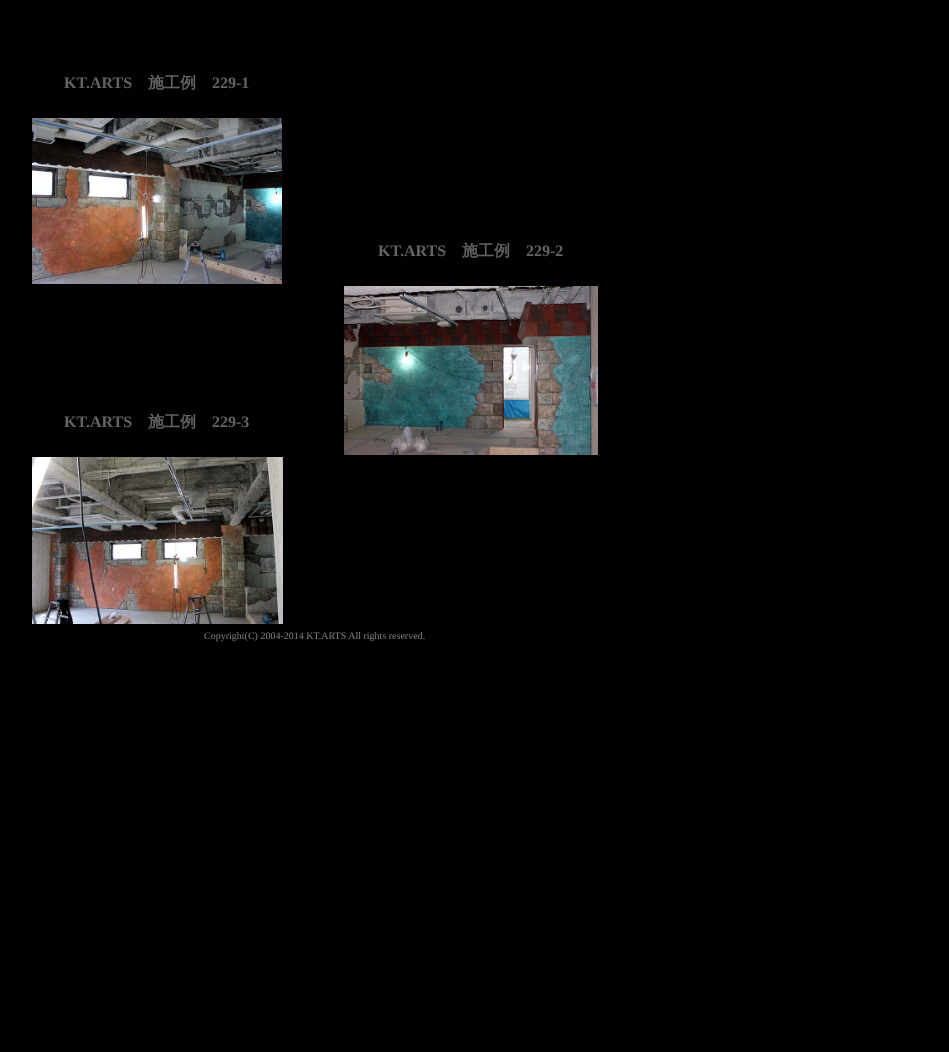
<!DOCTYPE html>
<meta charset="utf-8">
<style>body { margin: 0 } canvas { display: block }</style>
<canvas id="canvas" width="949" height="1052"></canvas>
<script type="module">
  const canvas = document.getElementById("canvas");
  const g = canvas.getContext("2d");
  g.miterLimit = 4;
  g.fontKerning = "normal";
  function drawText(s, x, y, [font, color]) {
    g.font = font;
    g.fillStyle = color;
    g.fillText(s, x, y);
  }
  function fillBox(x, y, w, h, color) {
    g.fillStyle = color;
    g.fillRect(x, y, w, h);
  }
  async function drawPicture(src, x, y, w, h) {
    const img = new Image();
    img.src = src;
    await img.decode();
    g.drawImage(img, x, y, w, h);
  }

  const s1 = ["bold 16px Liberation Serif", "#646262"];
  const s2 = ["bold 16px WenQuanYi Zen Hei", "#646262"];
  const s3 = ["10px Liberation Serif", "#808080"];

  fillBox(0, 0, 949, 1052, "#000000");
  fillBox(2, 52, 310, 64, "#030003");
  drawText("KT.ARTS", 64, 88, s1);
  drawText("施工例", 148, 88, s2);
  drawText("229-1", 212, 88, s1);
  fillBox(314, 52, 314, 64, "#030003");
  fillBox(2, 118, 310, 166, "#030003");
  await drawPicture("pic1.png", 32, 118, 250, 166);
  fillBox(314, 118, 314, 166, "#030003");
  drawText("KT.ARTS", 378, 256, s1);
  drawText("施工例", 462, 256, s2);
  drawText("229-2", 526, 256, s1);
  fillBox(2, 286, 310, 169, "#030003");
  drawText("KT.ARTS", 64, 427, s1);
  drawText("施工例", 148, 427, s2);
  drawText("229-3", 212, 427, s1);
  fillBox(314, 286, 314, 169, "#030003");
  await drawPicture("pic2.png", 344, 286, 254, 169);
  fillBox(2, 457, 310, 167, "#030003");
  await drawPicture("pic3.png", 32, 457, 251, 167);
  fillBox(314, 457, 314, 167, "#030003");
  drawText("Copyright(C) 2004-2014 KT.ARTS All rights reserved.", 204, 639, s3);
</script>
